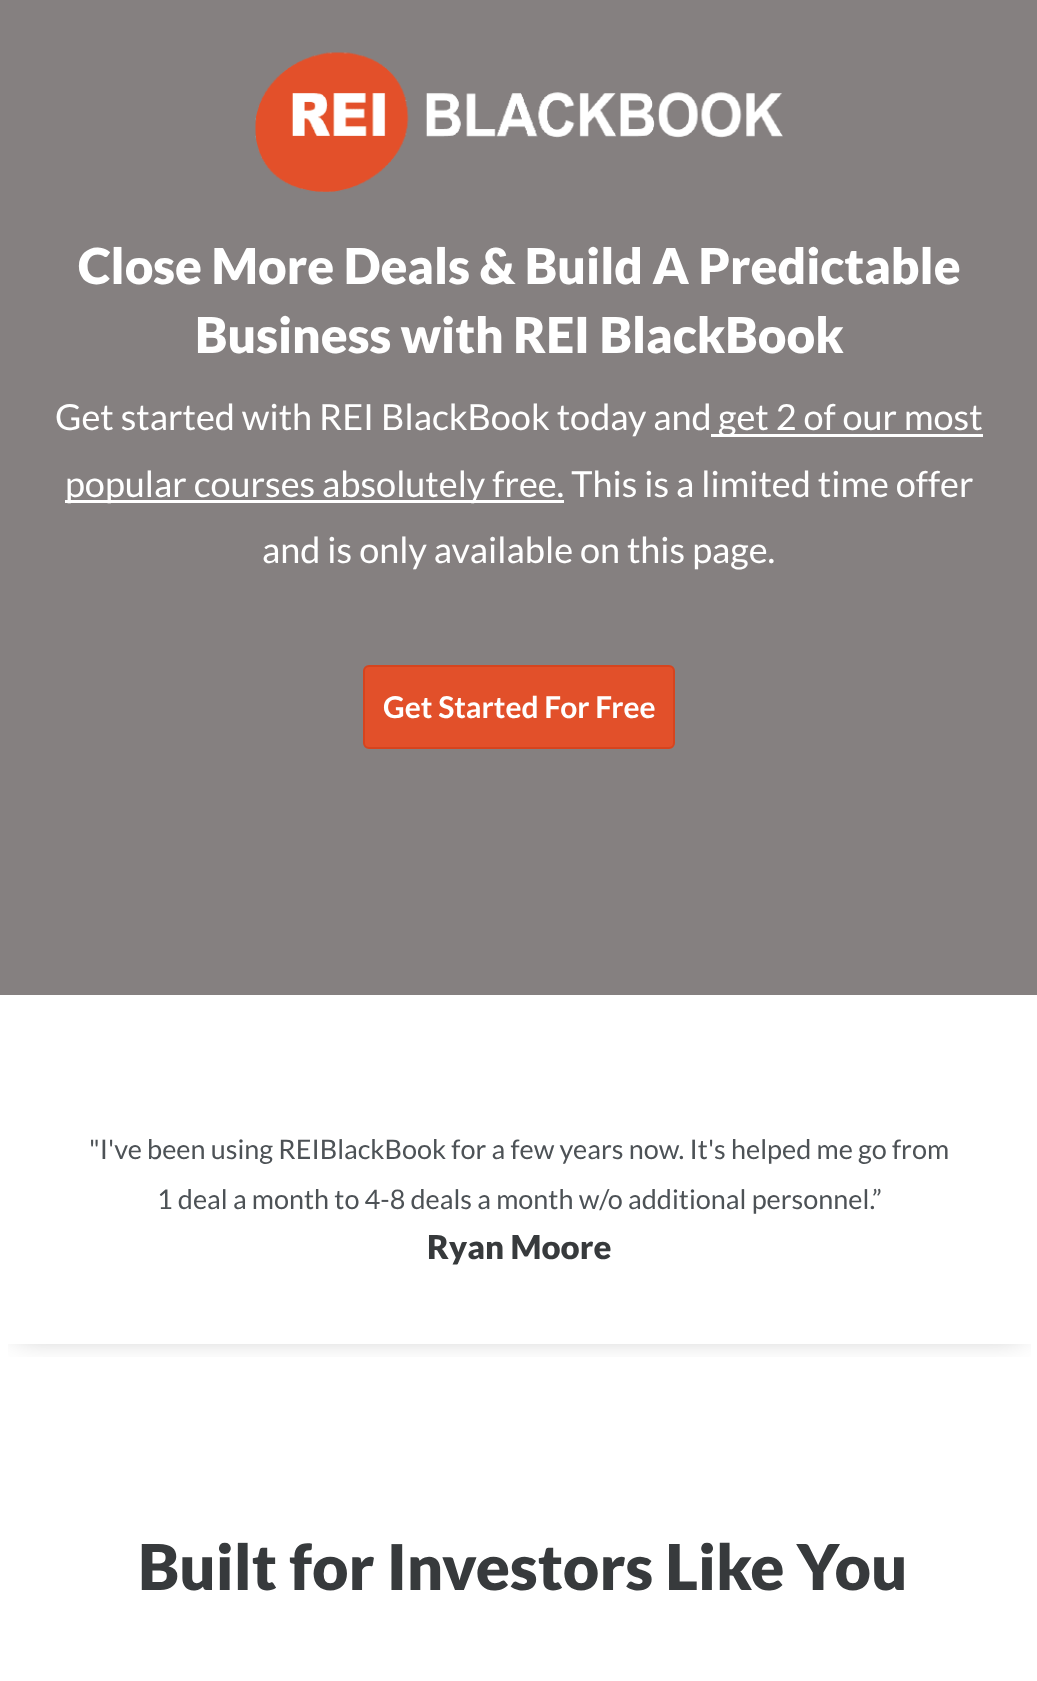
<!DOCTYPE html>
<meta charset="utf-8">
<style>body { margin: 0 } canvas { display: block }</style>
<canvas id="canvas" width="1037" height="1681"></canvas>
<script type="module">
  const canvas = document.getElementById("canvas");
  const g = canvas.getContext("2d");
  g.miterLimit = 4;
  g.fontKerning = "normal";
  function drawText(s, x, y, [font, color]) {
    g.font = font;
    g.fillStyle = color;
    g.fillText(s, x, y);
  }
  function fillBox(x, y, w, h, color) {
    g.fillStyle = color;
    g.fillRect(x, y, w, h);
  }
  async function drawPicture(src, x, y, w, h) {
    const img = new Image();
    img.src = src;
    await img.decode();
    g.drawImage(img, x, y, w, h);
  }

  const s1 = ["900 49.5px Lato", "#FFFFFF"];
  const s2 = ["36px Lato", "#FFFFFF"];
  const s3 = ["bold 30px Lato", "#FFFFFF"];
  const s4 = ["27px Lato", "#4D5256"];
  const s5 = ["900 33px Lato", "#373A3C"];
  const s6 = ["900 63px Lato", "#373A3C"];

  fillBox(0, 0, 1037, 1681, "#FFFFFF");
  fillBox(0, 0, 1037, 995, "#858080");
  await drawPicture("pic1.png", 255, 52, 528, 140);
  drawText("Close More Deals & Build A Predictable", 78, 284, s1);
  drawText("Business with REI BlackBook", 195, 353, s1);
  drawText("Get started with REI BlackBook today and", 55, 430, s2);
  fillBox(711, 434, 272, 3, "#FFFFFF");
  drawText("get 2 of our most", 718, 430, s2);
  fillBox(65, 500, 499, 3, "#FFFFFF");
  drawText("popular courses absolutely free. This is a limited time offer", 65, 497, s2);
  drawText("and is only available on this page.", 262, 563, s2);
  g.fillStyle = "#E2502A";
  g.beginPath();
  g.roundRect(364, 666, 310, 82, 5);
  g.fill();
  g.strokeStyle = "#D6441E";
  g.lineWidth = 2;
  g.stroke();
  drawText("Get Started For Free", 383, 718, s3);
  g.save();
  g.beginPath();
  g.rect(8, 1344, 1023, 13);
  g.clip();
  g.fillStyle = "rgba(0, 0, 0, 0.31)";
  g.filter = "blur(15px)";
  g.beginPath();
  g.rect(17, 1055, 1005, 279);
  g.fill();
  g.filter = "none";
  g.restore();
  drawText("\"I've been using REIBlackBook for a few years now. It's helped me go from", 89, 1159, s4);
  drawText("1 deal a month to 4-8 deals a month w/o additional personnel.”", 157, 1209, s4);
  drawText("Ryan Moore", 427, 1259, s5);
  drawText("Built for Investors Like You", 138, 1590, s6);
</script>
